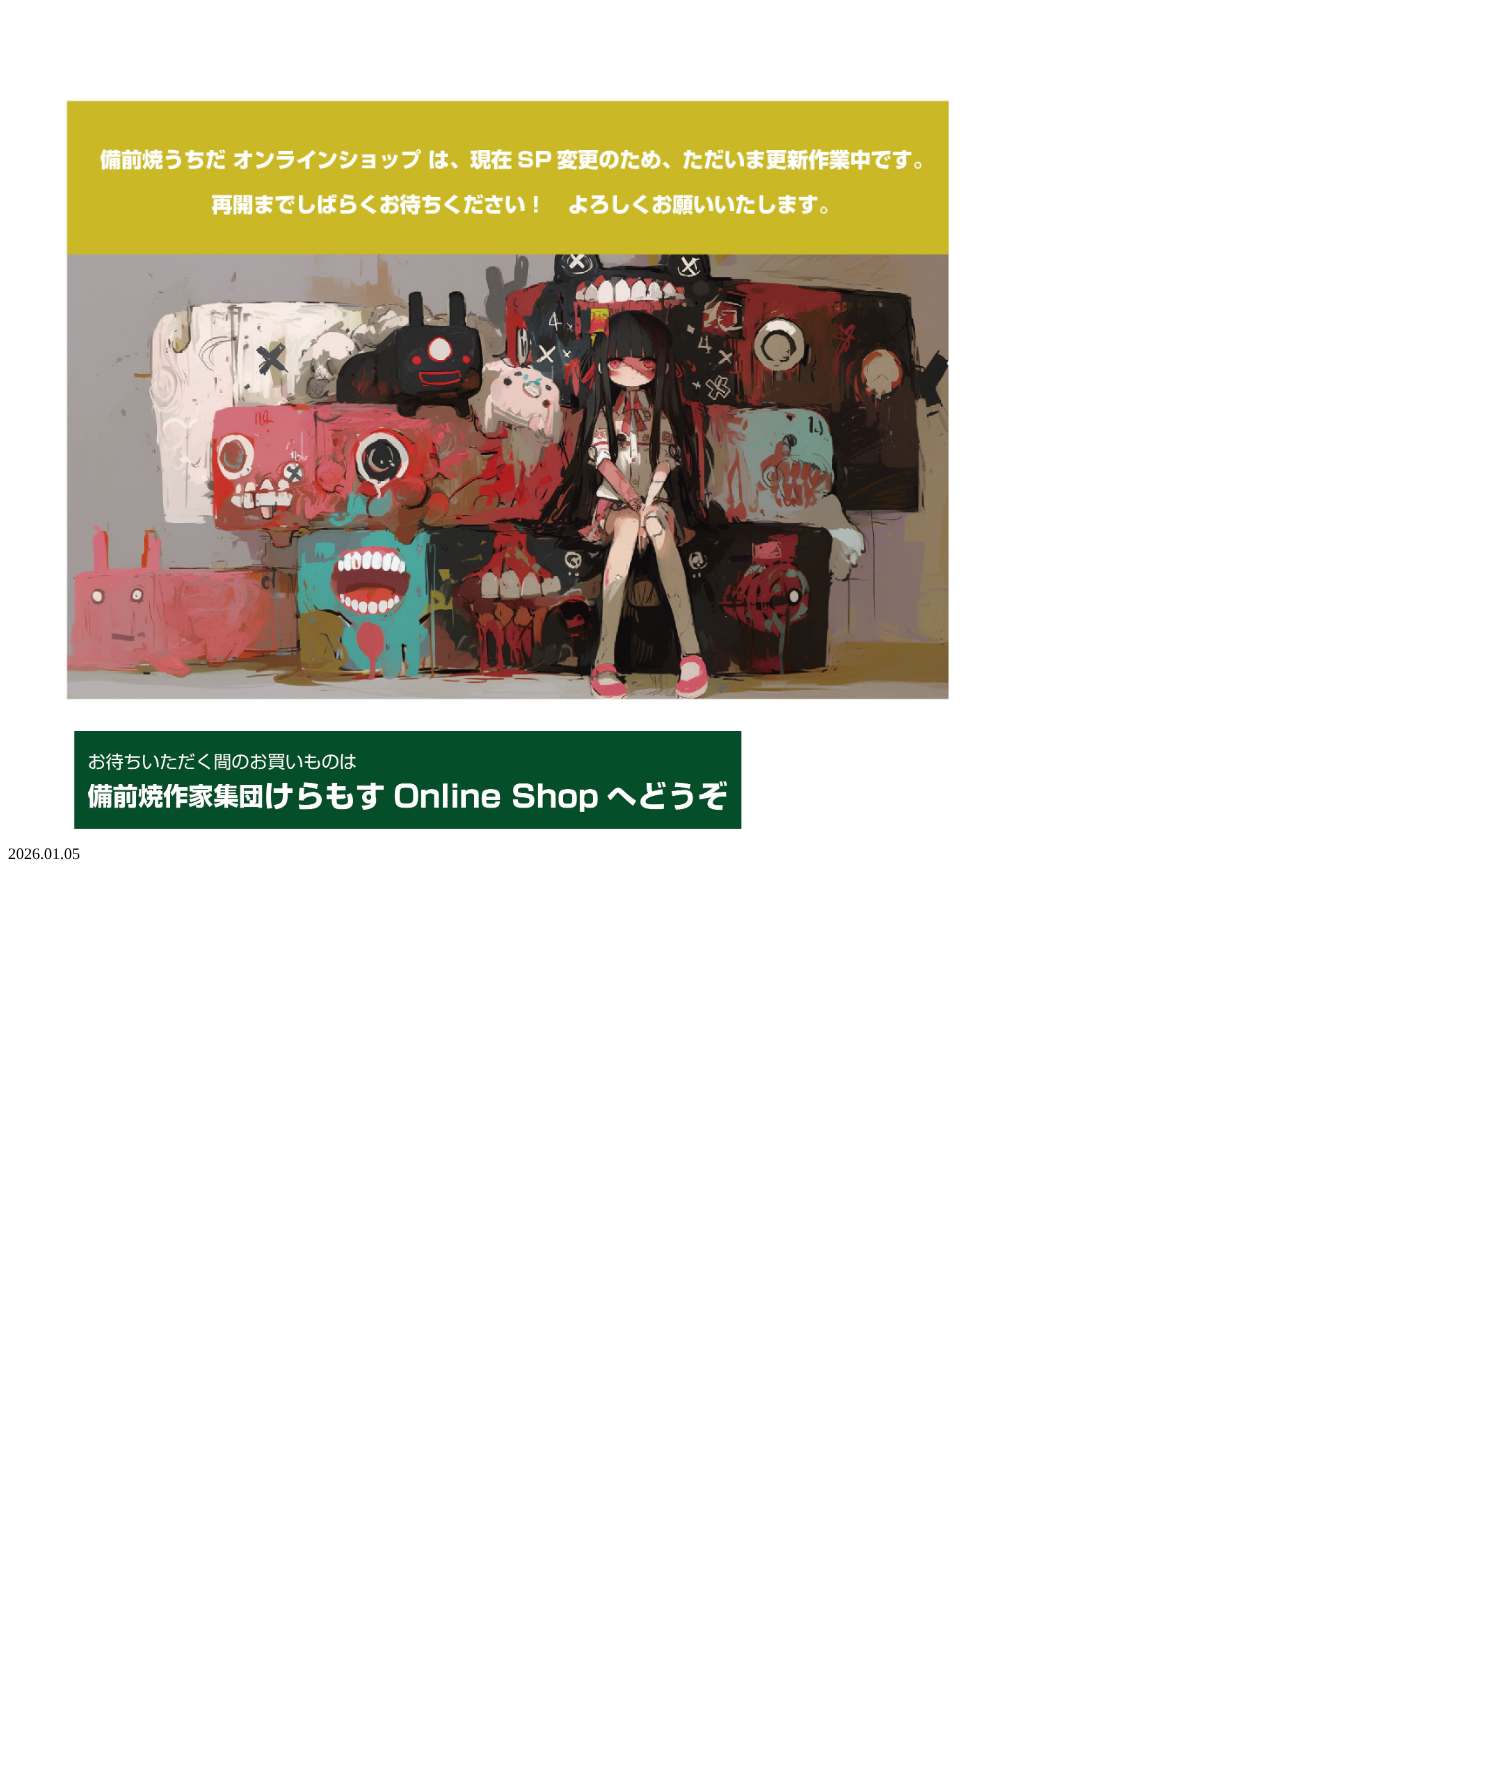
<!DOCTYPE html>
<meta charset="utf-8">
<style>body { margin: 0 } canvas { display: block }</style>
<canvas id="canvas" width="1504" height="1781"></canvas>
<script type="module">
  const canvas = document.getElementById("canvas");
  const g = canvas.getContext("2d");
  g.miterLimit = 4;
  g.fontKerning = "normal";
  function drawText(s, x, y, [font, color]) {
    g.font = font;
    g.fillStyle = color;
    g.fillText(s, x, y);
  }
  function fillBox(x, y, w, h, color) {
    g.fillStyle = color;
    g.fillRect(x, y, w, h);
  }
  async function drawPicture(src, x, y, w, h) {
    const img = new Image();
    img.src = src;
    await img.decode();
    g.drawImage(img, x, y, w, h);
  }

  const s1 = ["16px Liberation Serif", "#000000"];

  fillBox(0, 0, 1504, 1781, "#FFFFFF");
  await drawPicture("pic1.png", 64, 99, 885, 601);
  await drawPicture("pic2.png", 73, 731, 669, 98);
  drawText("2026.01.05", 8, 859, s1);
</script>
